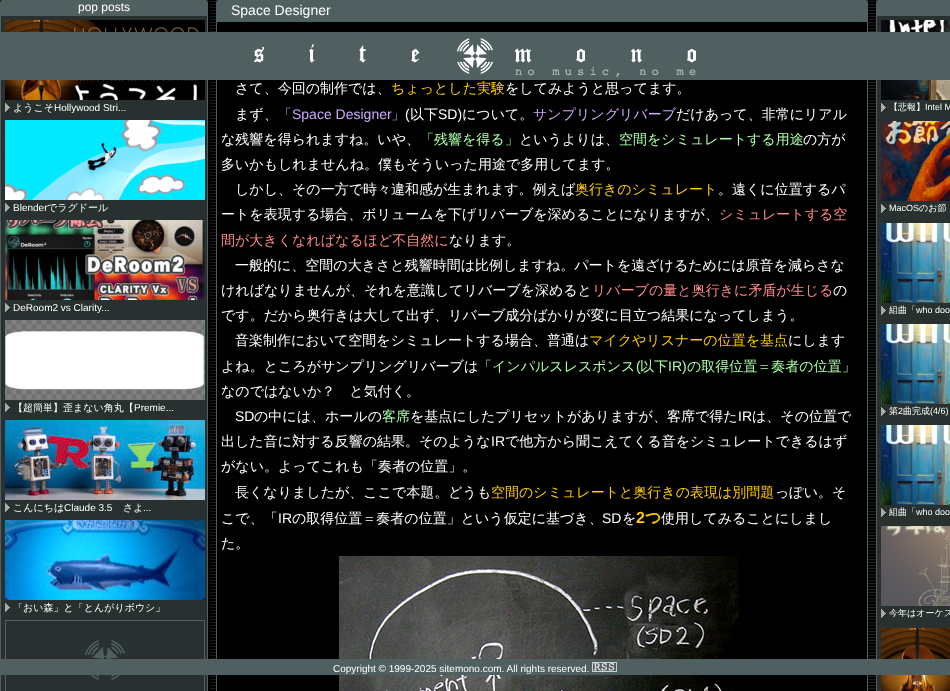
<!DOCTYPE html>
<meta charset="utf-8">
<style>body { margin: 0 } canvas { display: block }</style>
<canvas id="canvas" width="950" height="691"></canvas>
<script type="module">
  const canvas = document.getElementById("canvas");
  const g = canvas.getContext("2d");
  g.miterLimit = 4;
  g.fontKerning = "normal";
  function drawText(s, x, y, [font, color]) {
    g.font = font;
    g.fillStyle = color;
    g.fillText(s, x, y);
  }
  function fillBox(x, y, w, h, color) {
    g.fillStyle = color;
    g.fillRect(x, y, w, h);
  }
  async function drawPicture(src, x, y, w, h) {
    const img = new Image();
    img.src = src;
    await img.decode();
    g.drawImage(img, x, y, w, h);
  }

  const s1 = ["12px Liberation Sans", "#FFFFFF"];
  const s2 = ["500 10px WenQuanYi Zen Hei", "#FFFFFF"];
  const s3 = ["10px Liberation Sans", "#FFFFFF"];
  const s4 = ["14px Liberation Sans", "#FFFFFF"];
  const s5 = ["500 14px WenQuanYi Zen Hei", "#FFFFFF"];
  const s6 = ["500 14px WenQuanYi Zen Hei", "#FFCC00"];
  const s7 = ["500 14px WenQuanYi Zen Hei", "#CCAAFF"];
  const s8 = ["14px Liberation Sans", "#CCAAFF"];
  const s9 = ["500 14px WenQuanYi Zen Hei", "#AAFFAA"];
  const s10 = ["500 14px WenQuanYi Zen Hei", "#FF8888"];
  const s11 = ["14px Liberation Sans", "#AAFFAA"];
  const s12 = ["bold 16px Liberation Sans", "#FFCC00"];
  const s13 = ["bold 16px WenQuanYi Zen Hei", "#FFCC00"];
  const s14 = ["500 9px WenQuanYi Zen Hei", "#FFFFFF"];
  const s15 = ["9px Liberation Sans", "#FFFFFF"];

  fillBox(0, 0, 950, 691, "#000000");
  await drawPicture("pic1.png", 210, 1, 666, 688);
  g.fillStyle = "#283030";
  g.beginPath();
  g.roundRect(0.5, -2.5, 207, 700, 5.5);
  g.fill();
  g.strokeStyle = "#506060";
  g.stroke();
  g.fillStyle = "#506060";
  g.beginPath();
  g.moveTo(6, -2);
  g.lineTo(202, -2);
  g.bezierCurveTo(205, -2, 207, 0, 207, 3);
  g.lineTo(207, 16);
  g.lineTo(1, 16);
  g.lineTo(1, 3);
  g.bezierCurveTo(1, 0, 3, -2, 6, -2);
  g.closePath();
  g.fill();
  drawText("pop posts", 78, 11, s1);
  await drawPicture("pic2.png", 5, 20, 200, 80);
  await drawPicture("pic3.png", 5, 103, 5, 9);
  drawText("ようこそ", 13, 111, s2);
  drawText("Hollywood Stri...", 54, 111, s3);
  await drawPicture("pic4.png", 5, 120, 200, 80);
  await drawPicture("pic3.png", 5, 203, 5, 9);
  drawText("Blender", 13, 211, s3);
  drawText("でラグドール", 47, 211, s2);
  await drawPicture("pic5.png", 5, 220, 200, 80);
  await drawPicture("pic3.png", 5, 303, 5, 9);
  drawText("DeRoom2 vs Clarity...", 13, 311, s3);
  await drawPicture("pic6.png", 5, 320, 200, 80);
  await drawPicture("pic3.png", 5, 403, 5, 9);
  drawText("【超簡単】歪まない角丸【", 13, 411, s2);
  drawText("Premie...", 134, 411, s3);
  await drawPicture("pic7.png", 5, 420, 200, 80);
  await drawPicture("pic3.png", 5, 503, 5, 9);
  drawText("こんにちは", 13, 511, s2);
  drawText("Claude 3.5", 64, 511, s3);
  drawText("さよ", 123, 511, s2);
  drawText("...", 143, 511, s3);
  await drawPicture("pic8.png", 5, 520, 200, 80);
  await drawPicture("pic3.png", 5, 603, 5, 9);
  drawText("「おい森」と「とんがりボウシ」", 13, 611, s2);
  await drawPicture("pic9.png", 5, 620, 200, 71);
  g.fillStyle = "#000000";
  g.beginPath();
  g.roundRect(216.5, -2.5, 651, 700, 5.5);
  g.fill();
  g.stroke();
  g.fillStyle = "#506060";
  g.beginPath();
  g.moveTo(222, -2);
  g.lineTo(862, -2);
  g.bezierCurveTo(865, -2, 867, 0, 867, 3);
  g.lineTo(867, 22);
  g.lineTo(217, 22);
  g.lineTo(217, 3);
  g.bezierCurveTo(217, 0, 219, -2, 222, -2);
  g.closePath();
  g.fill();
  drawText("Space Designer", 231, 15, s4);
  drawText("さて、今回の制作では、", 235, 93, s5);
  drawText("ちょっとした実験", 391, 93, s6);
  drawText("をしてみようと思ってます。", 505, 93, s5);
  drawText("まず、", 235, 119, s5);
  drawText("「", 278, 119, s7);
  drawText("Space Designer", 292, 119, s8);
  drawText("」", 391, 119, s7);
  drawText("(", 405, 119, s4);
  drawText("以下", 410, 119, s5);
  drawText("SD)", 438, 119, s4);
  drawText("について。", 462, 119, s5);
  drawText("サンプリングリバーブ", 533, 119, s7);
  drawText("だけあって、非常にリアル", 676, 119, s5);
  drawText("な残響を得られますね。いや、", 221, 144, s5);
  drawText("「残響を得る」", 420, 144, s9);
  drawText("というよりは、", 519, 144, s5);
  drawText("空間をシミュレートする用途", 619, 144, s9);
  drawText("の方が", 803, 144, s5);
  drawText("多いかもしれませんね。僕もそういった用途で多用してます。", 221, 169, s5);
  drawText("しかし、その一方で時々違和感が生まれます。例えば", 235, 194, s5);
  drawText("奥行きのシミュレート", 575, 194, s6);
  drawText("。遠くに位置するパ", 718, 194, s5);
  drawText("ートを表現する場合、ボリュームを下げリバーブを深めることになりますが、", 221, 219, s5);
  drawText("シミュレートする空", 719, 219, s10);
  drawText("間が大きくなればなるほど不自然に", 221, 245, s10);
  drawText("なります。", 449, 245, s5);
  drawText("一般的に、空間の大きさと残響時間は比例しますね。パートを遠ざけるためには原音を減らさな", 235, 270, s5);
  drawText("ければなりませんが、それを意識してリバーブを深めると", 221, 295, s5);
  drawText("リバーブの量と奥行きに矛盾が生じる", 592, 295, s10);
  drawText("の", 833, 295, s5);
  drawText("です。だから奥行きは大して出ず、リバーブ成分ばかりが変に目立つ結果になってしまう。", 221, 320, s5);
  drawText("音楽制作において空間をシミュレートする場合、普通は", 235, 345, s5);
  drawText("マイクやリスナーの位置を基点", 589, 345, s6);
  drawText("にします", 788, 345, s5);
  drawText("よね。ところがサンプリングリバーブは", 221, 371, s5);
  drawText("「インパルスレスポンス", 478, 371, s9);
  drawText("(", 636, 371, s11);
  drawText("以下", 640, 371, s9);
  drawText("IR)", 668, 371, s11);
  drawText("の取得位置＝奏者の位置」", 687, 371, s9);
  drawText("なのではないか？　と気付く。", 221, 396, s5);
  drawText("SD", 235, 421, s4);
  drawText("の中には、ホールの", 254, 421, s5);
  drawText("客席", 382, 421, s9);
  drawText("を基点にしたプリセットがありますが、客席で得た", 410, 421, s5);
  drawText("IR", 738, 421, s4);
  drawText("は、その位置で", 752, 421, s5);
  drawText("出した音に対する反響の結果。そのような", 221, 446, s5);
  drawText("IR", 491, 446, s4);
  drawText("で他方から聞こえてくる音をシミュレートできるはず", 505, 446, s5);
  drawText("がない。よってこれも「奏者の位置」。", 221, 471, s5);
  drawText("長くなりましたが、ここで本題。どうも", 235, 497, s5);
  drawText("空間のシミュレートと奥行きの表現は別問題", 491, 497, s6);
  drawText("っぽい。そ", 775, 497, s5);
  drawText("こで、「", 221, 523, s5);
  drawText("IR", 278, 523, s4);
  drawText("の取得位置＝奏者の位置」という仮定に基づき、", 292, 523, s5);
  drawText("SD", 602, 523, s4);
  drawText("を", 622, 523, s5);
  drawText("2", 636, 523, s12);
  drawText("つ", 645, 523, s13);
  drawText("使用してみることにしまし", 661, 523, s5);
  drawText("た。", 221, 548, s5);
  await drawPicture("pic10.png", 339, 556, 400, 135);
  g.fillStyle = "#283030";
  g.beginPath();
  g.roundRect(876.5, -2.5, 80, 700, 5.5);
  g.fill();
  g.stroke();
  g.fillStyle = "#506060";
  g.beginPath();
  g.moveTo(882, -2);
  g.lineTo(950, -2);
  g.bezierCurveTo(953, -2, 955, 0, 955, 3);
  g.lineTo(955, 16);
  g.lineTo(877, 16);
  g.lineTo(877, 3);
  g.bezierCurveTo(877, 0, 879, -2, 882, -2);
  g.closePath();
  g.fill();
  await drawPicture("pic11.png", 881, 20, 69, 80);
  await drawPicture("pic3.png", 881, 103, 5, 9);
  drawText("【悲報】", 889, 110, s14);
  drawText("Intel M", 925, 110, s15);
  await drawPicture("pic12.png", 881, 121, 69, 80);
  await drawPicture("pic3.png", 881, 204, 5, 9);
  drawText("MacOS", 889, 211, s15);
  drawText("のお節", 919, 211, s14);
  await drawPicture("pic13.png", 881, 223, 69, 80);
  await drawPicture("pic3.png", 881, 306, 5, 9);
  drawText("組曲「", 889, 313, s14);
  drawText("who doo", 916, 313, s15);
  await drawPicture("pic13.png", 881, 324, 69, 80);
  await drawPicture("pic3.png", 881, 407, 5, 9);
  drawText("第", 889, 414, s14);
  drawText("2", 898, 414, s15);
  drawText("曲完成", 903, 414, s14);
  drawText("(4/6)", 930, 414, s15);
  await drawPicture("pic13.png", 881, 425, 69, 80);
  await drawPicture("pic3.png", 881, 508, 5, 9);
  drawText("組曲「", 889, 515, s14);
  drawText("who doo", 916, 515, s15);
  await drawPicture("pic14.png", 881, 526, 69, 80);
  await drawPicture("pic3.png", 881, 609, 5, 9);
  drawText("今年はオーケス", 889, 616, s14);
  await drawPicture("pic15.png", 881, 628, 69, 63);
  fillBox(1, 32, 949, 48, "#506060");
  await drawPicture("pic16.png", 254, 38, 442, 39);
  fillBox(1, 659, 949, 16, "#506060");
  drawText("Copyright © 1999-2025 sitemono.com. All rights reserved.", 333, 672, s3);
  await drawPicture("pic17.png", 592, 662, 25, 10);
</script>
